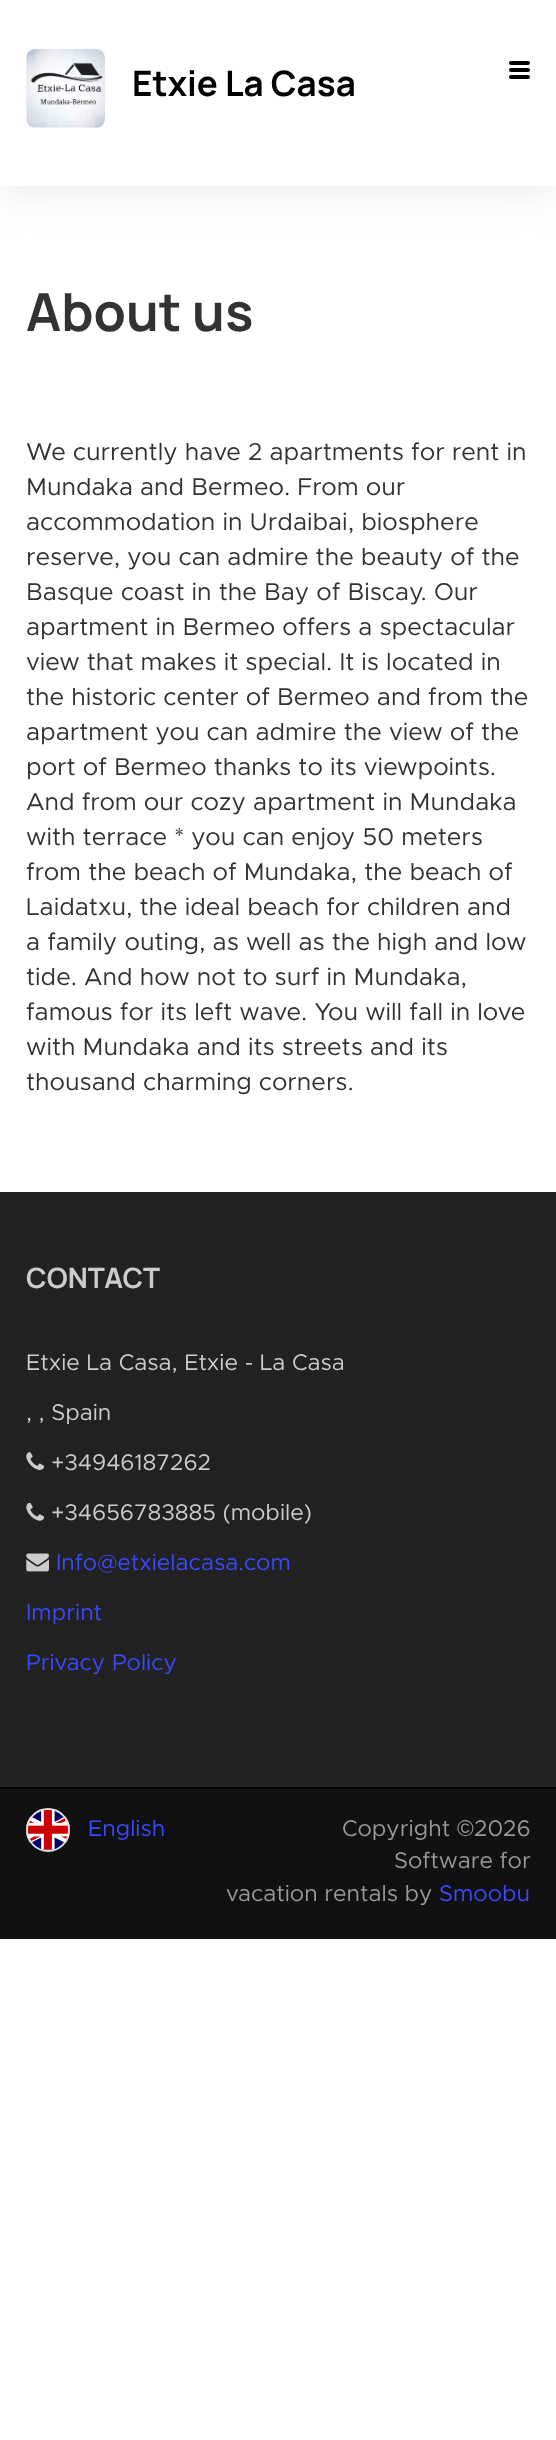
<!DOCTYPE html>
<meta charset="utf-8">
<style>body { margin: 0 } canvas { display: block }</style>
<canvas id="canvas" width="556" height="2440"></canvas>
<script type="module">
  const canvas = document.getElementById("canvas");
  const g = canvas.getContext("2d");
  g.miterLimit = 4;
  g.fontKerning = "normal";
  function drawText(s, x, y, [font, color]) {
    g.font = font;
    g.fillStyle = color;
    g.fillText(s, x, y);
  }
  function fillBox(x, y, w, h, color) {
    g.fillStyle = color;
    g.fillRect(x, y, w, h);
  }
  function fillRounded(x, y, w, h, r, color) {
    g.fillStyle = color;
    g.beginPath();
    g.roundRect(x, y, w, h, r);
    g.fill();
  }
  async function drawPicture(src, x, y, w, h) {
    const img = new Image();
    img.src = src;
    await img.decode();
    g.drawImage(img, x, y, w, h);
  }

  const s1 = ["bold 35px Manrope", "#000000"];
  const s2 = ["bold 52.5px Manrope", "#333333"];
  const s3 = ["24.5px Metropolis", "#333333"];
  const s4 = ["bold 28px Manrope", "#CCCCCC"];
  const s5 = ["22.75px Metropolis", "#CCCCCC"];
  const s6 = ["22.75px Metropolis", "#3B4AFF"];
  const s7 = ["22.75px Metropolis", "#999999"];
  const s8 = ["22.75px Liberation Sans", "#999999"];

  fillBox(0, 0, 556, 2440, "#FFFFFF");
  g.fillStyle = "#E9E9E9";
  g.filter = "blur(19px)";
  g.beginPath();
  g.rect(0, 5, 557, 186);
  g.fill();
  g.filter = "none";
  fillBox(0, 0, 556, 186, "#FFFFFF");
  await drawPicture("pic1.png", 26, 49, 79, 79);
  drawText("Etxie La Casa", 132, 96, s1);
  fillRounded(509, 61, 21, 4, 2, "#000000");
  fillRounded(509, 68, 21, 4, 2, "#000000");
  fillRounded(509, 75, 21, 4, 2, "#000000");
  drawText("About us", 26, 331, s2);
  drawText("We currently have 2 apartments for rent in", 26, 460, s3);
  drawText("Mundaka and Bermeo. From our", 26, 495, s3);
  drawText("accommodation in Urdaibai, biosphere", 26, 530, s3);
  drawText("reserve, you can admire the beauty of the", 26, 565, s3);
  drawText("Basque coast in the Bay of Biscay. Our", 26, 600, s3);
  drawText("apartment in Bermeo offers a spectacular", 26, 635, s3);
  drawText("view that makes it special. It is located in", 26, 670, s3);
  drawText("the historic center of Bermeo and from the", 26, 705, s3);
  drawText("apartment you can admire the view of the", 26, 740, s3);
  drawText("port of Bermeo thanks to its viewpoints.", 26, 775, s3);
  drawText("And from our cozy apartment in Mundaka", 26, 810, s3);
  drawText("with terrace * you can enjoy 50 meters", 26, 845, s3);
  drawText("from the beach of Mundaka, the beach of", 26, 880, s3);
  drawText("Laidatxu, the ideal beach for children and", 26, 915, s3);
  drawText("a family outing, as well as the high and low", 26, 950, s3);
  drawText("tide. And how not to surf in Mundaka,", 26, 985, s3);
  drawText("famous for its left wave. You will fall in love", 26, 1020, s3);
  drawText("with Mundaka and its streets and its", 26, 1055, s3);
  drawText("thousand charming corners.", 26, 1090, s3);
  fillBox(0, 1192, 556, 595, "#222222");
  drawText("CONTACT", 26, 1288, s4);
  drawText("Etxie La Casa, Etxie - La Casa", 26, 1370, s5);
  drawText(", , Spain", 26, 1420, s5);
  await drawPicture("pic2.png", 26, 1452, 19, 18);
  drawText("+34946187262", 51, 1470, s5);
  await drawPicture("pic3.png", 26, 1502, 19, 19);
  drawText("+34656783885 (mobile)", 51, 1520, s5);
  await drawPicture("pic4.png", 26, 1553, 23, 19);
  drawText("Info@etxielacasa.com", 56, 1570, s6);
  drawText("Imprint", 26, 1620, s6);
  drawText("Privacy Policy", 26, 1670, s6);
  fillBox(0, 1789, 556, 150, "#111111");
  fillBox(0, 1787, 556, 2, "#000000");
  await drawPicture("pic5.png", 26, 1810, 44, 40);
  g.beginPath();
  g.arc(48, 1830, 21, 0, Math.PI * 2);
  g.strokeStyle = "#DDDDDD";
  g.lineWidth = 2;
  g.stroke();
  drawText("English", 88, 1836, s6);
  drawText("Copyright", 342, 1836, s7);
  drawText("©", 457, 1836, s8);
  drawText("2026", 474, 1836, s7);
  drawText("Software for", 394, 1868, s7);
  drawText("vacation rentals by", 226, 1901, s7);
  drawText("Smoobu", 439, 1901, s6);
</script>
